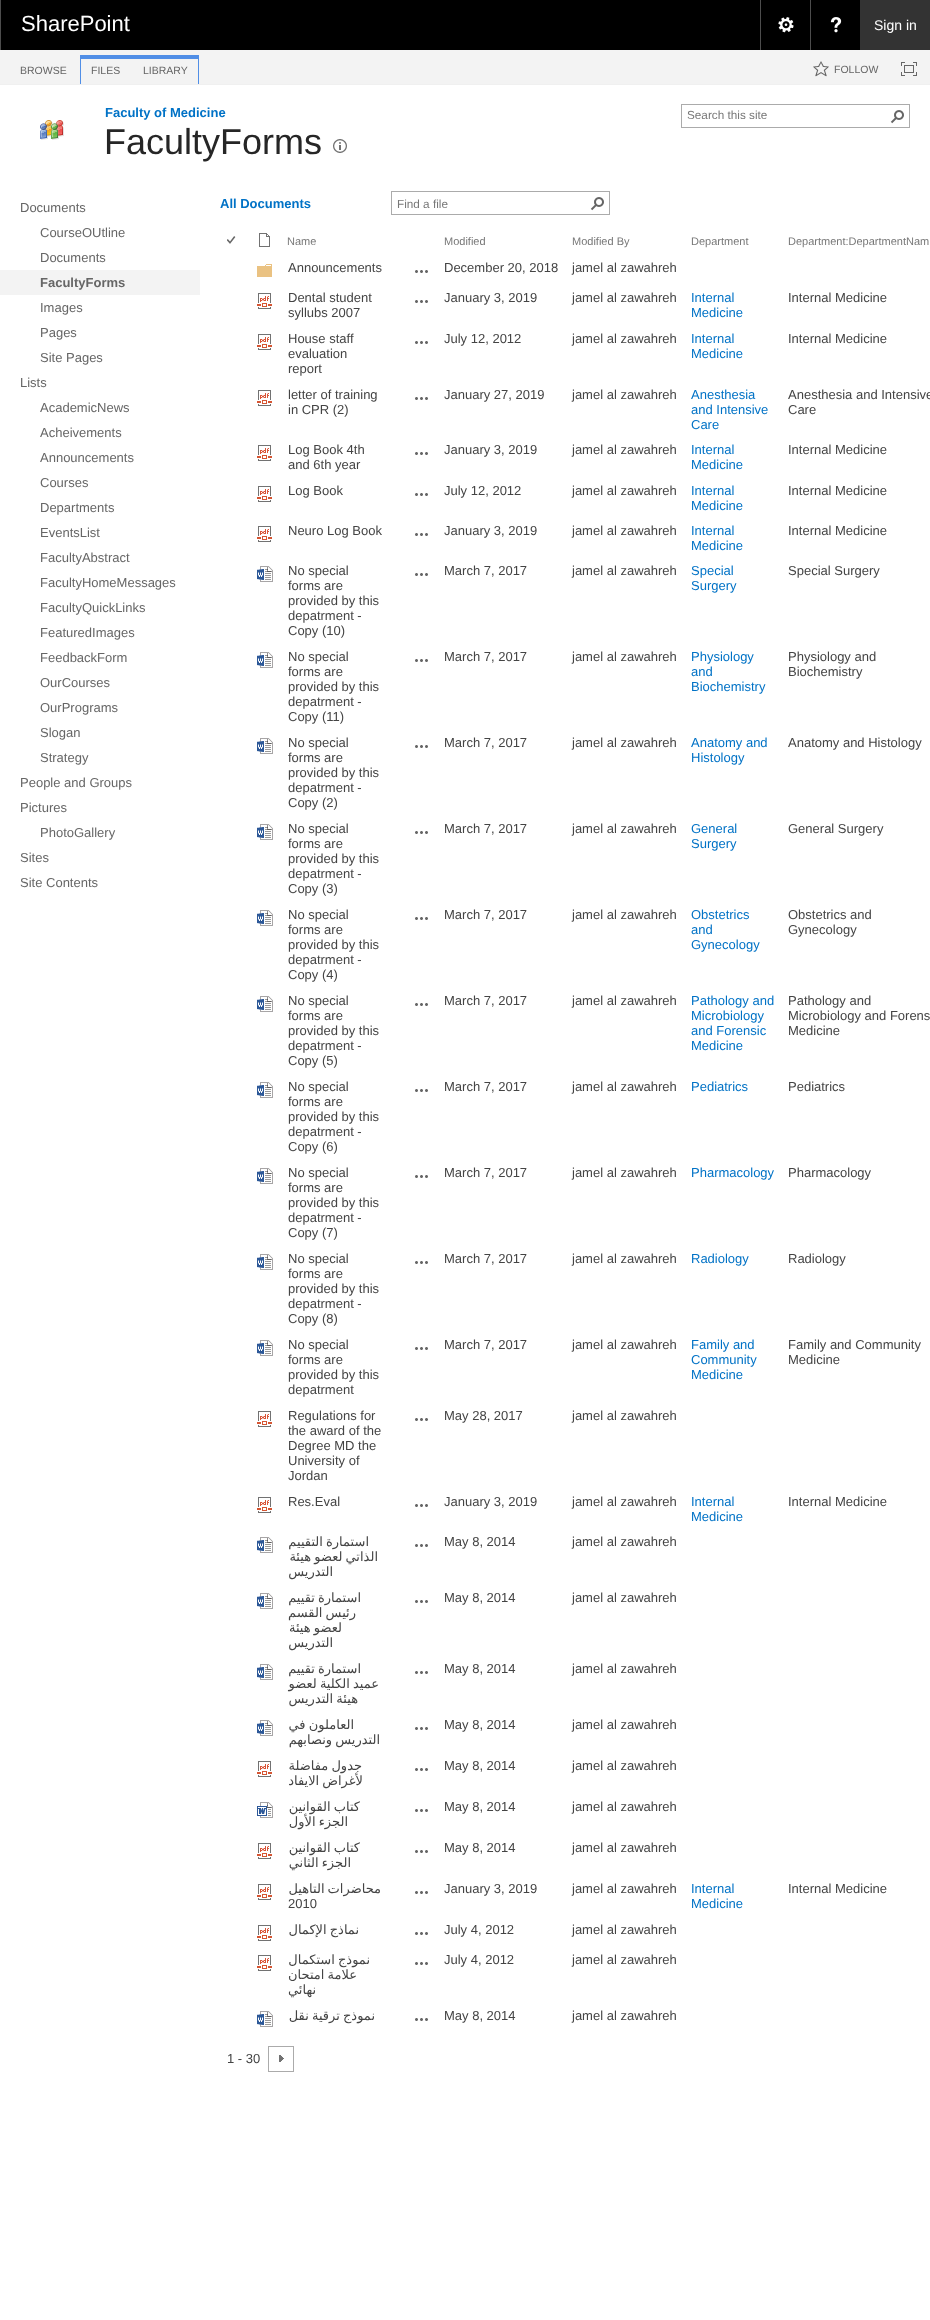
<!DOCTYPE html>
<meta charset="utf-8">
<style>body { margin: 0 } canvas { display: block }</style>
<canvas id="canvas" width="930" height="2320"></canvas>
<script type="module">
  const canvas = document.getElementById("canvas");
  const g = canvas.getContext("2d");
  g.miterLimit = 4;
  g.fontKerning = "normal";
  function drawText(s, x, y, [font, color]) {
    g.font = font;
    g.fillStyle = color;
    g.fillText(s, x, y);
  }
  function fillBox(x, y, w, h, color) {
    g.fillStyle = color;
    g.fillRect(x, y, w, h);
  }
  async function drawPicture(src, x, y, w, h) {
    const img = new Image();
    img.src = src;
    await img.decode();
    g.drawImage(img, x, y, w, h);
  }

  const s1 = ["22px Liberation Sans", "#FFFFFF"];
  const s2 = ["14px Liberation Sans", "#FFFFFF"];
  const s3 = ["10.5px Liberation Sans", "#666666"];
  const s4 = ["bold 13px Liberation Sans", "#0072C6"];
  const s5 = ["36px Liberation Sans", "#262626"];
  const s6 = ["11.75px Liberation Sans", "#777777"];
  const s7 = ["13px Liberation Sans", "#666666"];
  const s8 = ["bold 13px Liberation Sans", "#666666"];
  const s9 = ["11px Liberation Sans", "#777777"];
  const s10 = ["13px Liberation Sans", "#444444"];
  const s11 = ["13px Liberation Sans", "#0072C6"];
  const s12 = ["13px DejaVu Sans", "#444444"];

  fillBox(0, 0, 930, 2320, "#FFFFFF");
  fillBox(1, 0, 859, 50, "#000000");
  fillBox(0, 0, 1, 50, "#4D4D4D");
  drawText("SharePoint", 21, 31, s1);
  fillBox(760, 0, 1, 50, "#4D4D4D");
  await drawPicture("pic1.png", 778, 17, 16, 16);
  fillBox(810, 0, 1, 50, "#4D4D4D");
  await drawPicture("pic2.png", 830, 17, 12, 16);
  fillBox(860, 0, 70, 50, "#333333");
  drawText("Sign in", 874, 30, s2);
  fillBox(0, 50, 930, 34, "#F3F3F3");
  fillBox(0, 84, 930, 1, "#F0F0F0");
  drawText("BROWSE", 20, 74, s3);
  fillBox(80, 55, 119, 4, "#508EE6");
  fillBox(80, 59, 1, 25, "#508EE6");
  drawText("FILES", 91, 74, s3);
  fillBox(198, 59, 1, 25, "#508EE6");
  drawText("LIBRARY", 143, 74, s3);
  await drawPicture("pic3.png", 813, 61, 16, 16);
  drawText("FOLLOW", 834, 73, s3);
  await drawPicture("pic4.png", 901, 62, 16, 14);
  drawText("Faculty of Medicine", 105, 117, s4);
  drawText("FacultyForms", 104, 154, s5);
  await drawPicture("pic5.png", 333, 139, 14, 14);
  g.strokeStyle = "#ABABAB";
  g.strokeRect(681.5, 104.5, 228, 23);
  drawText("Search this site", 687, 119, s6);
  await drawPicture("pic6.png", 890, 110, 14, 14);
  await drawPicture("pic7.png", 40, 120, 24, 20);
  drawText("Documents", 20, 212, s7);
  drawText("CourseOUtline", 40, 237, s7);
  drawText("Documents", 40, 262, s7);
  fillBox(0, 270, 200, 25, "#F3F3F3");
  drawText("FacultyForms", 40, 287, s8);
  drawText("Images", 40, 312, s7);
  drawText("Pages", 40, 337, s7);
  drawText("Site Pages", 40, 362, s7);
  drawText("Lists", 20, 387, s7);
  drawText("AcademicNews", 40, 412, s7);
  drawText("Acheivements", 40, 437, s7);
  drawText("Announcements", 40, 462, s7);
  drawText("Courses", 40, 487, s7);
  drawText("Departments", 40, 512, s7);
  drawText("EventsList", 40, 537, s7);
  drawText("FacultyAbstract", 40, 562, s7);
  drawText("FacultyHomeMessages", 40, 587, s7);
  drawText("FacultyQuickLinks", 40, 612, s7);
  drawText("FeaturedImages", 40, 637, s7);
  drawText("FeedbackForm", 40, 662, s7);
  drawText("OurCourses", 40, 687, s7);
  drawText("OurPrograms", 40, 712, s7);
  drawText("Slogan", 40, 737, s7);
  drawText("Strategy", 40, 762, s7);
  drawText("People and Groups", 20, 787, s7);
  drawText("Pictures", 20, 812, s7);
  drawText("PhotoGallery", 40, 837, s7);
  drawText("Sites", 20, 862, s7);
  drawText("Site Contents", 20, 887, s7);
  drawText("All Documents", 220, 208, s4);
  g.strokeRect(391.5, 191.5, 218, 23);
  drawText("Find a file", 397, 208, s6);
  await drawPicture("pic6.png", 590, 197, 14, 14);
  await drawPicture("pic8.png", 227, 236, 9, 8);
  await drawPicture("pic9.png", 259, 233, 11, 14);
  drawText("Name", 287, 245, s9);
  drawText("Modified", 444, 245, s9);
  drawText("Modified By", 572, 245, s9);
  drawText("Department", 691, 245, s9);
  drawText("Department:DepartmentNam", 788, 245, s9);
  await drawPicture("pic10.png", 257, 264, 15, 13);
  drawText("Announcements", 288, 272, s10);
  await drawPicture("pic11.png", 415, 270, 13, 3);
  drawText("December 20, 2018", 444, 272, s10);
  drawText("jamel al zawahreh", 572, 272, s10);
  await drawPicture("pic12.png", 257, 293, 15, 16);
  drawText("Dental student", 288, 302, s10);
  drawText("syllubs 2007", 288, 317, s10);
  await drawPicture("pic11.png", 415, 300, 13, 3);
  drawText("January 3, 2019", 444, 302, s10);
  drawText("jamel al zawahreh", 572, 302, s10);
  drawText("Internal", 691, 302, s11);
  drawText("Medicine", 691, 317, s11);
  drawText("Internal Medicine", 788, 302, s10);
  await drawPicture("pic12.png", 257, 334, 15, 16);
  drawText("House staff", 288, 343, s10);
  drawText("evaluation", 288, 358, s10);
  drawText("report", 288, 373, s10);
  await drawPicture("pic11.png", 415, 341, 13, 3);
  drawText("July 12, 2012", 444, 343, s10);
  drawText("jamel al zawahreh", 572, 343, s10);
  drawText("Internal", 691, 343, s11);
  drawText("Medicine", 691, 358, s11);
  drawText("Internal Medicine", 788, 343, s10);
  await drawPicture("pic12.png", 257, 390, 15, 16);
  drawText("letter of training", 288, 399, s10);
  drawText("in CPR (2)", 288, 414, s10);
  await drawPicture("pic11.png", 415, 397, 13, 3);
  drawText("January 27, 2019", 444, 399, s10);
  drawText("jamel al zawahreh", 572, 399, s10);
  drawText("Anesthesia", 691, 399, s11);
  drawText("and Intensive", 691, 414, s11);
  drawText("Care", 691, 429, s11);
  drawText("Anesthesia and Intensive", 788, 399, s10);
  drawText("Care", 788, 414, s10);
  await drawPicture("pic12.png", 257, 445, 15, 16);
  drawText("Log Book 4th", 288, 454, s10);
  drawText("and 6th year", 288, 469, s10);
  await drawPicture("pic11.png", 415, 452, 13, 3);
  drawText("January 3, 2019", 444, 454, s10);
  drawText("jamel al zawahreh", 572, 454, s10);
  drawText("Internal", 691, 454, s11);
  drawText("Medicine", 691, 469, s11);
  drawText("Internal Medicine", 788, 454, s10);
  await drawPicture("pic12.png", 257, 486, 15, 16);
  drawText("Log Book", 288, 495, s10);
  await drawPicture("pic11.png", 415, 493, 13, 3);
  drawText("July 12, 2012", 444, 495, s10);
  drawText("jamel al zawahreh", 572, 495, s10);
  drawText("Internal", 691, 495, s11);
  drawText("Medicine", 691, 510, s11);
  drawText("Internal Medicine", 788, 495, s10);
  await drawPicture("pic12.png", 257, 526, 15, 16);
  drawText("Neuro Log Book", 288, 535, s10);
  await drawPicture("pic11.png", 415, 533, 13, 3);
  drawText("January 3, 2019", 444, 535, s10);
  drawText("jamel al zawahreh", 572, 535, s10);
  drawText("Internal", 691, 535, s11);
  drawText("Medicine", 691, 550, s11);
  drawText("Internal Medicine", 788, 535, s10);
  await drawPicture("pic13.png", 257, 566, 16, 16);
  drawText("No special", 288, 575, s10);
  drawText("forms are", 288, 590, s10);
  drawText("provided by this", 288, 605, s10);
  drawText("depatrment -", 288, 620, s10);
  drawText("Copy (10)", 288, 635, s10);
  await drawPicture("pic11.png", 415, 573, 13, 3);
  drawText("March 7, 2017", 444, 575, s10);
  drawText("jamel al zawahreh", 572, 575, s10);
  drawText("Special", 691, 575, s11);
  drawText("Surgery", 691, 590, s11);
  drawText("Special Surgery", 788, 575, s10);
  await drawPicture("pic13.png", 257, 652, 16, 16);
  drawText("No special", 288, 661, s10);
  drawText("forms are", 288, 676, s10);
  drawText("provided by this", 288, 691, s10);
  drawText("depatrment -", 288, 706, s10);
  drawText("Copy (11)", 288, 721, s10);
  await drawPicture("pic11.png", 415, 659, 13, 3);
  drawText("March 7, 2017", 444, 661, s10);
  drawText("jamel al zawahreh", 572, 661, s10);
  drawText("Physiology", 691, 661, s11);
  drawText("and", 691, 676, s11);
  drawText("Biochemistry", 691, 691, s11);
  drawText("Physiology and", 788, 661, s10);
  drawText("Biochemistry", 788, 676, s10);
  await drawPicture("pic13.png", 257, 738, 16, 16);
  drawText("No special", 288, 747, s10);
  drawText("forms are", 288, 762, s10);
  drawText("provided by this", 288, 777, s10);
  drawText("depatrment -", 288, 792, s10);
  drawText("Copy (2)", 288, 807, s10);
  await drawPicture("pic11.png", 415, 745, 13, 3);
  drawText("March 7, 2017", 444, 747, s10);
  drawText("jamel al zawahreh", 572, 747, s10);
  drawText("Anatomy and", 691, 747, s11);
  drawText("Histology", 691, 762, s11);
  drawText("Anatomy and Histology", 788, 747, s10);
  await drawPicture("pic13.png", 257, 824, 16, 16);
  drawText("No special", 288, 833, s10);
  drawText("forms are", 288, 848, s10);
  drawText("provided by this", 288, 863, s10);
  drawText("depatrment -", 288, 878, s10);
  drawText("Copy (3)", 288, 893, s10);
  await drawPicture("pic11.png", 415, 831, 13, 3);
  drawText("March 7, 2017", 444, 833, s10);
  drawText("jamel al zawahreh", 572, 833, s10);
  drawText("General", 691, 833, s11);
  drawText("Surgery", 691, 848, s11);
  drawText("General Surgery", 788, 833, s10);
  await drawPicture("pic13.png", 257, 910, 16, 16);
  drawText("No special", 288, 919, s10);
  drawText("forms are", 288, 934, s10);
  drawText("provided by this", 288, 949, s10);
  drawText("depatrment -", 288, 964, s10);
  drawText("Copy (4)", 288, 979, s10);
  await drawPicture("pic11.png", 415, 917, 13, 3);
  drawText("March 7, 2017", 444, 919, s10);
  drawText("jamel al zawahreh", 572, 919, s10);
  drawText("Obstetrics", 691, 919, s11);
  drawText("and", 691, 934, s11);
  drawText("Gynecology", 691, 949, s11);
  drawText("Obstetrics and", 788, 919, s10);
  drawText("Gynecology", 788, 934, s10);
  await drawPicture("pic13.png", 257, 996, 16, 16);
  drawText("No special", 288, 1005, s10);
  drawText("forms are", 288, 1020, s10);
  drawText("provided by this", 288, 1035, s10);
  drawText("depatrment -", 288, 1050, s10);
  drawText("Copy (5)", 288, 1065, s10);
  await drawPicture("pic11.png", 415, 1003, 13, 3);
  drawText("March 7, 2017", 444, 1005, s10);
  drawText("jamel al zawahreh", 572, 1005, s10);
  drawText("Pathology and", 691, 1005, s11);
  drawText("Microbiology", 691, 1020, s11);
  drawText("and Forensic", 691, 1035, s11);
  drawText("Medicine", 691, 1050, s11);
  drawText("Pathology and", 788, 1005, s10);
  drawText("Microbiology and Forens", 788, 1020, s10);
  drawText("Medicine", 788, 1035, s10);
  await drawPicture("pic13.png", 257, 1082, 16, 16);
  drawText("No special", 288, 1091, s10);
  drawText("forms are", 288, 1106, s10);
  drawText("provided by this", 288, 1121, s10);
  drawText("depatrment -", 288, 1136, s10);
  drawText("Copy (6)", 288, 1151, s10);
  await drawPicture("pic11.png", 415, 1089, 13, 3);
  drawText("March 7, 2017", 444, 1091, s10);
  drawText("jamel al zawahreh", 572, 1091, s10);
  drawText("Pediatrics", 691, 1091, s11);
  drawText("Pediatrics", 788, 1091, s10);
  await drawPicture("pic13.png", 257, 1168, 16, 16);
  drawText("No special", 288, 1177, s10);
  drawText("forms are", 288, 1192, s10);
  drawText("provided by this", 288, 1207, s10);
  drawText("depatrment -", 288, 1222, s10);
  drawText("Copy (7)", 288, 1237, s10);
  await drawPicture("pic11.png", 415, 1175, 13, 3);
  drawText("March 7, 2017", 444, 1177, s10);
  drawText("jamel al zawahreh", 572, 1177, s10);
  drawText("Pharmacology", 691, 1177, s11);
  drawText("Pharmacology", 788, 1177, s10);
  await drawPicture("pic13.png", 257, 1254, 16, 16);
  drawText("No special", 288, 1263, s10);
  drawText("forms are", 288, 1278, s10);
  drawText("provided by this", 288, 1293, s10);
  drawText("depatrment -", 288, 1308, s10);
  drawText("Copy (8)", 288, 1323, s10);
  await drawPicture("pic11.png", 415, 1261, 13, 3);
  drawText("March 7, 2017", 444, 1263, s10);
  drawText("jamel al zawahreh", 572, 1263, s10);
  drawText("Radiology", 691, 1263, s11);
  drawText("Radiology", 788, 1263, s10);
  await drawPicture("pic13.png", 257, 1340, 16, 16);
  drawText("No special", 288, 1349, s10);
  drawText("forms are", 288, 1364, s10);
  drawText("provided by this", 288, 1379, s10);
  drawText("depatrment", 288, 1394, s10);
  await drawPicture("pic11.png", 415, 1347, 13, 3);
  drawText("March 7, 2017", 444, 1349, s10);
  drawText("jamel al zawahreh", 572, 1349, s10);
  drawText("Family and", 691, 1349, s11);
  drawText("Community", 691, 1364, s11);
  drawText("Medicine", 691, 1379, s11);
  drawText("Family and Community", 788, 1349, s10);
  drawText("Medicine", 788, 1364, s10);
  await drawPicture("pic12.png", 257, 1411, 15, 16);
  drawText("Regulations for", 288, 1420, s10);
  drawText("the award of the", 288, 1435, s10);
  drawText("Degree MD the", 288, 1450, s10);
  drawText("University of", 288, 1465, s10);
  drawText("Jordan", 288, 1480, s10);
  await drawPicture("pic11.png", 415, 1418, 13, 3);
  drawText("May 28, 2017", 444, 1420, s10);
  drawText("jamel al zawahreh", 572, 1420, s10);
  await drawPicture("pic12.png", 257, 1497, 15, 16);
  drawText("Res.Eval", 288, 1506, s10);
  await drawPicture("pic11.png", 415, 1504, 13, 3);
  drawText("January 3, 2019", 444, 1506, s10);
  drawText("jamel al zawahreh", 572, 1506, s10);
  drawText("Internal", 691, 1506, s11);
  drawText("Medicine", 691, 1521, s11);
  drawText("Internal Medicine", 788, 1506, s10);
  await drawPicture("pic13.png", 257, 1537, 16, 16);
  g.wordSpacing = "-1px";
  g.direction = "rtl";
  drawText("استمارة التقييم", 369, 1546, s12);
  drawText("الذاتي لعضو هيئة", 378, 1561, s12);
  g.wordSpacing = "0px";
  drawText("التدريس", 333, 1576, s12);
  await drawPicture("pic11.png", 415, 1544, 13, 3);
  g.direction = "ltr";
  drawText("May 8, 2014", 444, 1546, s10);
  drawText("jamel al zawahreh", 572, 1546, s10);
  await drawPicture("pic13.png", 257, 1593, 16, 16);
  g.wordSpacing = "-1px";
  g.direction = "rtl";
  drawText("استمارة تقييم", 361, 1602, s12);
  drawText("رئيس القسم", 356, 1617, s12);
  drawText("لعضو هيئة", 342, 1632, s12);
  g.wordSpacing = "0px";
  drawText("التدريس", 333, 1647, s12);
  await drawPicture("pic11.png", 415, 1600, 13, 3);
  g.direction = "ltr";
  drawText("May 8, 2014", 444, 1602, s10);
  drawText("jamel al zawahreh", 572, 1602, s10);
  await drawPicture("pic13.png", 257, 1664, 16, 16);
  g.wordSpacing = "-1px";
  g.direction = "rtl";
  drawText("استمارة تقييم", 361, 1673, s12);
  drawText("عميد الكلية لعضو", 379, 1688, s12);
  drawText("هيئة التدريس", 358, 1703, s12);
  await drawPicture("pic11.png", 415, 1671, 13, 3);
  g.wordSpacing = "0px";
  g.direction = "ltr";
  drawText("May 8, 2014", 444, 1673, s10);
  drawText("jamel al zawahreh", 572, 1673, s10);
  await drawPicture("pic13.png", 257, 1720, 16, 16);
  g.wordSpacing = "-1px";
  g.direction = "rtl";
  drawText("العاملون في", 354, 1729, s12);
  drawText("التدريس ونصابهم", 380, 1744, s12);
  await drawPicture("pic11.png", 415, 1727, 13, 3);
  g.wordSpacing = "0px";
  g.direction = "ltr";
  drawText("May 8, 2014", 444, 1729, s10);
  drawText("jamel al zawahreh", 572, 1729, s10);
  await drawPicture("pic12.png", 257, 1761, 15, 16);
  g.wordSpacing = "-1px";
  g.direction = "rtl";
  drawText("جدول مفاضلة", 362, 1770, s12);
  drawText("لأغراض الايفاد", 363, 1785, s12);
  await drawPicture("pic11.png", 415, 1768, 13, 3);
  g.wordSpacing = "0px";
  g.direction = "ltr";
  drawText("May 8, 2014", 444, 1770, s10);
  drawText("jamel al zawahreh", 572, 1770, s10);
  await drawPicture("pic14.png", 257, 1802, 16, 16);
  g.wordSpacing = "-1px";
  g.direction = "rtl";
  drawText("كتاب القوانين", 360, 1811, s12);
  drawText("الجزء الأول", 348, 1826, s12);
  await drawPicture("pic11.png", 415, 1809, 13, 3);
  g.wordSpacing = "0px";
  g.direction = "ltr";
  drawText("May 8, 2014", 444, 1811, s10);
  drawText("jamel al zawahreh", 572, 1811, s10);
  await drawPicture("pic12.png", 257, 1843, 15, 16);
  g.wordSpacing = "-1px";
  g.direction = "rtl";
  drawText("كتاب القوانين", 360, 1852, s12);
  drawText("الجزء الثاني", 351, 1867, s12);
  await drawPicture("pic11.png", 415, 1850, 13, 3);
  g.wordSpacing = "0px";
  g.direction = "ltr";
  drawText("May 8, 2014", 444, 1852, s10);
  drawText("jamel al zawahreh", 572, 1852, s10);
  await drawPicture("pic12.png", 257, 1884, 15, 16);
  g.wordSpacing = "-1px";
  g.direction = "rtl";
  drawText("محاضرات التاهيل", 381, 1893, s12);
  g.wordSpacing = "0px";
  g.direction = "ltr";
  drawText("2010", 288, 1908, s10);
  await drawPicture("pic11.png", 415, 1891, 13, 3);
  drawText("January 3, 2019", 444, 1893, s10);
  drawText("jamel al zawahreh", 572, 1893, s10);
  drawText("Internal", 691, 1893, s11);
  drawText("Medicine", 691, 1908, s11);
  drawText("Internal Medicine", 788, 1893, s10);
  await drawPicture("pic12.png", 257, 1925, 15, 16);
  g.wordSpacing = "-1px";
  g.direction = "rtl";
  drawText("نماذج الإكمال", 359, 1934, s12);
  await drawPicture("pic11.png", 415, 1932, 13, 3);
  g.wordSpacing = "0px";
  g.direction = "ltr";
  drawText("July 4, 2012", 444, 1934, s10);
  drawText("jamel al zawahreh", 572, 1934, s10);
  await drawPicture("pic12.png", 257, 1955, 15, 16);
  g.wordSpacing = "-1px";
  g.direction = "rtl";
  drawText("نموذج استكمال", 370, 1964, s12);
  drawText("علامة امتحان", 357, 1979, s12);
  g.wordSpacing = "0px";
  drawText("نهائي", 316, 1994, s12);
  await drawPicture("pic11.png", 415, 1962, 13, 3);
  g.direction = "ltr";
  drawText("July 4, 2012", 444, 1964, s10);
  drawText("jamel al zawahreh", 572, 1964, s10);
  await drawPicture("pic13.png", 257, 2011, 16, 16);
  g.wordSpacing = "-1px";
  g.direction = "rtl";
  drawText("نموذج ترقية نقل", 375, 2020, s12);
  await drawPicture("pic11.png", 415, 2018, 13, 3);
  g.wordSpacing = "0px";
  g.direction = "ltr";
  drawText("May 8, 2014", 444, 2020, s10);
  drawText("jamel al zawahreh", 572, 2020, s10);
  drawText("1 - 30", 227, 2063, s10);
  g.strokeRect(268.5, 2046.5, 25, 25);
  await drawPicture("pic15.png", 279, 2055, 5, 7);
</script>
